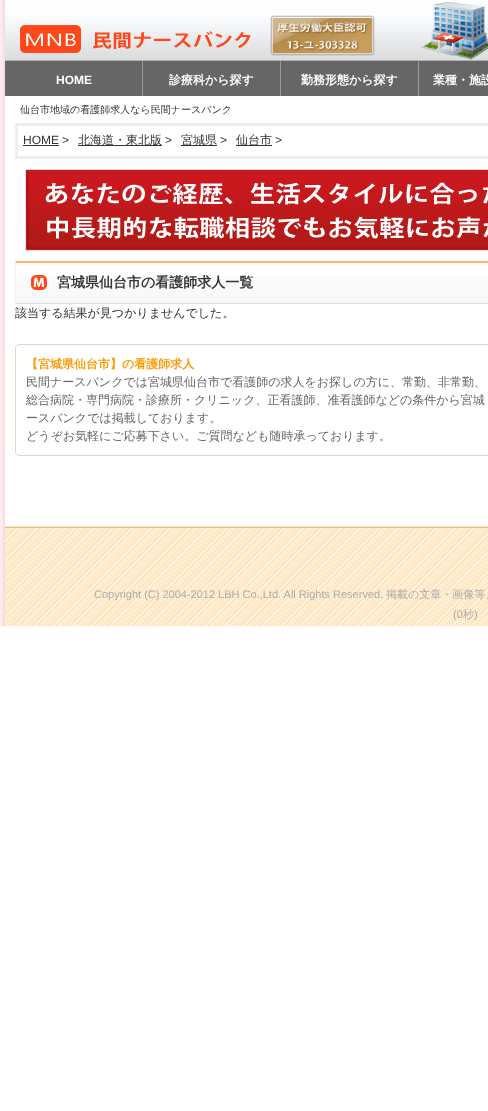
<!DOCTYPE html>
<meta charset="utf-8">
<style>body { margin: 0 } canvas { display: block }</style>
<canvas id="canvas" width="488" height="1111"></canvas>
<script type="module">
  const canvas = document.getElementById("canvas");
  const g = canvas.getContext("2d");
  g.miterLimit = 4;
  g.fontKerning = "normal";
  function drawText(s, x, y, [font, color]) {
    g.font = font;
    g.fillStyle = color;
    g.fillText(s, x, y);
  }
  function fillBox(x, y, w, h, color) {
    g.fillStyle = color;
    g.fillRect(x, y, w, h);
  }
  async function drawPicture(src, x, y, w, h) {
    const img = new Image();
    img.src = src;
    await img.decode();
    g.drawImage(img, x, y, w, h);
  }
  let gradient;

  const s1 = ["bold 12px Liberation Sans", "#FFFFFF"];
  const s2 = ["bold 12px WenQuanYi Zen Hei", "#FFFFFF"];
  const s3 = ["500 10px WenQuanYi Zen Hei", "#333333"];
  const s4 = ["12px Liberation Sans", "#333333"];
  const s5 = ["500 12px WenQuanYi Zen Hei", "#333333"];
  const s6 = ["bold 14px WenQuanYi Zen Hei", "#333333"];
  const s7 = ["bold 12px WenQuanYi Zen Hei", "#FF9900"];
  const s8 = ["500 12px WenQuanYi Zen Hei", "#666666"];
  const s9 = ["11px Liberation Sans", "#AAAAAA"];
  const s10 = ["500 11px WenQuanYi Zen Hei", "#AAAAAA"];

  fillBox(0, 0, 488, 1111, "#FFFFFF");
  await drawPicture("pic1.png", 0, 0, 488, 626);
  await drawPicture("pic2.png", 5, 2, 483, 58);
  fillBox(5, 60, 483, 1, "#B2B2B2");
  fillBox(5, 61, 137, 35, "#666666");
  fillBox(142, 61, 1, 35, "#999999");
  drawText("HOME", 56, 84, s1);
  fillBox(143, 61, 137, 35, "#666666");
  fillBox(280, 61, 1, 35, "#999999");
  drawText("診療科から探す", 169, 84, s2);
  fillBox(281, 61, 137, 35, "#666666");
  fillBox(418, 61, 1, 35, "#999999");
  drawText("勤務形態から探す", 301, 84, s2);
  fillBox(419, 61, 69, 35, "#666666");
  drawText("業種・施設", 433, 84, s2);
  drawText("仙台市地域の看護師求人なら民間ナースバンク", 20, 113, s3);
  g.strokeStyle = "#EEEEEE";
  g.lineWidth = 3;
  g.strokeRect(16.5, 124.5, 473, 33);
  drawText("HOME", 23, 144, s4);
  fillBox(23, 145, 36, 1, "#333333");
  drawText(">", 62, 144, s4);
  fillBox(78, 145, 84, 1, "#333333");
  drawText("北海道・東北版", 78, 144, s5);
  drawText(">", 165, 144, s4);
  fillBox(181, 145, 36, 1, "#333333");
  drawText("宮城県", 181, 144, s5);
  drawText(">", 220, 144, s4);
  fillBox(236, 145, 36, 1, "#333333");
  drawText("仙台市", 236, 144, s5);
  drawText(">", 275, 144, s4);
  g.strokeStyle = "#DDDDDD";
  g.lineWidth = 1;
  g.strokeRect(25.5, 169.5, 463, 81);
  await drawPicture("pic3.png", 26, 170, 462, 80);
  gradient = g.createLinearGradient(465, 263, 465, 303);
  gradient.addColorStop(0, "#FFFFFF");
  gradient.addColorStop(1, "#F7F7F7");
  g.fillStyle = gradient;
  g.fillRect(16, 276, 472, 27);
  g.fillStyle = "#FFB566";
  g.beginPath();
  g.moveTo(15, 261);
  g.lineTo(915, 261);
  g.lineTo(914, 263);
  g.lineTo(16, 263);
  g.closePath();
  g.fill();
  fillBox(15, 303, 473, 1, "#DDDDDD");
  g.fillStyle = "#EEEEEE";
  g.beginPath();
  g.moveTo(15, 304);
  g.lineTo(15, 261);
  g.lineTo(16, 263);
  g.lineTo(16, 303);
  g.closePath();
  g.fill();
  await drawPicture("pic4.png", 31, 275, 16, 15);
  drawText("宮城県仙台市の看護師求人一覧", 57, 287, s6);
  drawText("該当する結果が見つかりませんでした。", 15, 317, s5);
  g.beginPath();
  g.roundRect(15.5, 344.5, 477, 111, 3.5);
  g.strokeStyle = "#DFD9C3";
  g.stroke();
  drawText("【宮城県仙台市】の看護師求人", 26, 368, s7);
  drawText("民間ナースバンクでは宮城県仙台市で看護師の求人をお探しの方に、常勤、非常勤、", 26, 386, s8);
  drawText("総合病院・専門病院・診療所・クリニック、正看護師、准看護師などの条件から宮城", 26, 404, s8);
  drawText("ースバンクでは掲載しております。", 26, 422, s8);
  drawText("どうぞお気軽にご応募下さい。ご質問なども随時承っております。", 26, 440, s8);
  await drawPicture("pic5.png", 5, 526, 483, 100);
  drawText("Copyright (C) 2004-2012 LBH Co.,Ltd. All Rights Reserved.", 94, 598, s9);
  drawText("掲載の文章・画像等、", 386, 598, s10);
  drawText("(0", 453, 618, s9);
  drawText("秒", 463, 618, s10);
  drawText(")", 474, 618, s9);
</script>
